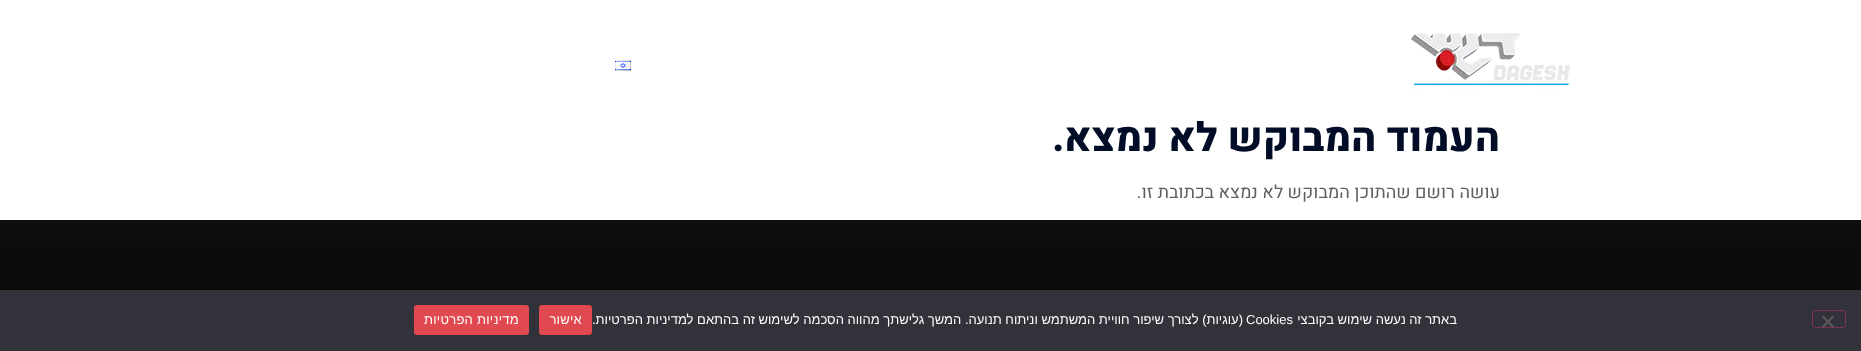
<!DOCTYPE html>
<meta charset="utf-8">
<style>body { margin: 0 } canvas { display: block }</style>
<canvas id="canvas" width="1861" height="351"></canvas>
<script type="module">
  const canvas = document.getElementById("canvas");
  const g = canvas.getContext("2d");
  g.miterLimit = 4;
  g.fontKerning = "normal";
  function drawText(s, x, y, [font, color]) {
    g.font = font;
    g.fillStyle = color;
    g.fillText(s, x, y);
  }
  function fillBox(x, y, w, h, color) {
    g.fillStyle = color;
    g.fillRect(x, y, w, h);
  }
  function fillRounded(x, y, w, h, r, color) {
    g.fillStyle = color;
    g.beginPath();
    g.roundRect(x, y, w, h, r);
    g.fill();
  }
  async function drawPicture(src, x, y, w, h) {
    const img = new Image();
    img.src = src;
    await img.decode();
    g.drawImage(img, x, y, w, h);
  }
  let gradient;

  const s1 = ["800 40px Heebo", "#010D26"];
  const s2 = ["18px Heebo", "#606060"];
  const s3 = ["13px Liberation Sans", "#FFFFFF"];

  fillBox(0, 0, 1861, 351, "#FFFFFF");
  await drawPicture("pic1.png", 1411, 33, 159, 59);
  await drawPicture("pic2.png", 615, 60, 16, 11);
  g.direction = "rtl";
  drawText("העמוד המבוקש לא נמצא.", 1500, 151, s1);
  drawText("עושה רושם שהתוכן המבוקש לא נמצא בכתובת זו.", 1500, 198, s2);
  gradient = g.createLinearGradient(931, 220, 931, 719);
  gradient.addColorStop(0, "#0D0D0D");
  gradient.addColorStop(1, "#000000");
  g.fillStyle = gradient;
  g.fillRect(0, 220, 1861, 70);
  fillBox(0, 290, 1861, 61, "#32323A");
  g.beginPath();
  g.roundRect(1812.5, 310.5, 33, 17, 2.5);
  g.strokeStyle = "#7F3350";
  g.stroke();
  g.fillStyle = "#59595D";
  g.beginPath();
  g.moveTo(1832.5, 315.5);
  g.lineTo(1834, 317);
  g.lineTo(1823.5, 328);
  g.lineTo(1822, 326.5);
  g.closePath();
  g.fill();
  g.beginPath();
  g.moveTo(1822, 317);
  g.lineTo(1823.5, 315.5);
  g.lineTo(1834, 326.5);
  g.lineTo(1832.5, 328);
  g.closePath();
  g.fill();
  drawText("באתר זה נעשה שימוש בקובצי", 1457, 324, s3);
  g.direction = "ltr";
  drawText("Cookies", 1246, 324, s3);
  g.direction = "rtl";
  drawText("(עוגיות) לצורך שיפור חוויית המשתמש וניתוח תנועה. המשך גלישתך מהווה הסכמה לשימוש זה בהתאם למדיניות הפרטיות.", 1243, 324, s3);
  fillRounded(539, 305, 53, 30, 3, "#DF494F");
  g.letterSpacing = "0.25px";
  drawText("אישור", 582, 324, s3);
  fillRounded(414, 305, 115, 30, 3, "#DF494F");
  drawText("מדיניות הפרטיות", 519, 324, s3);
</script>
